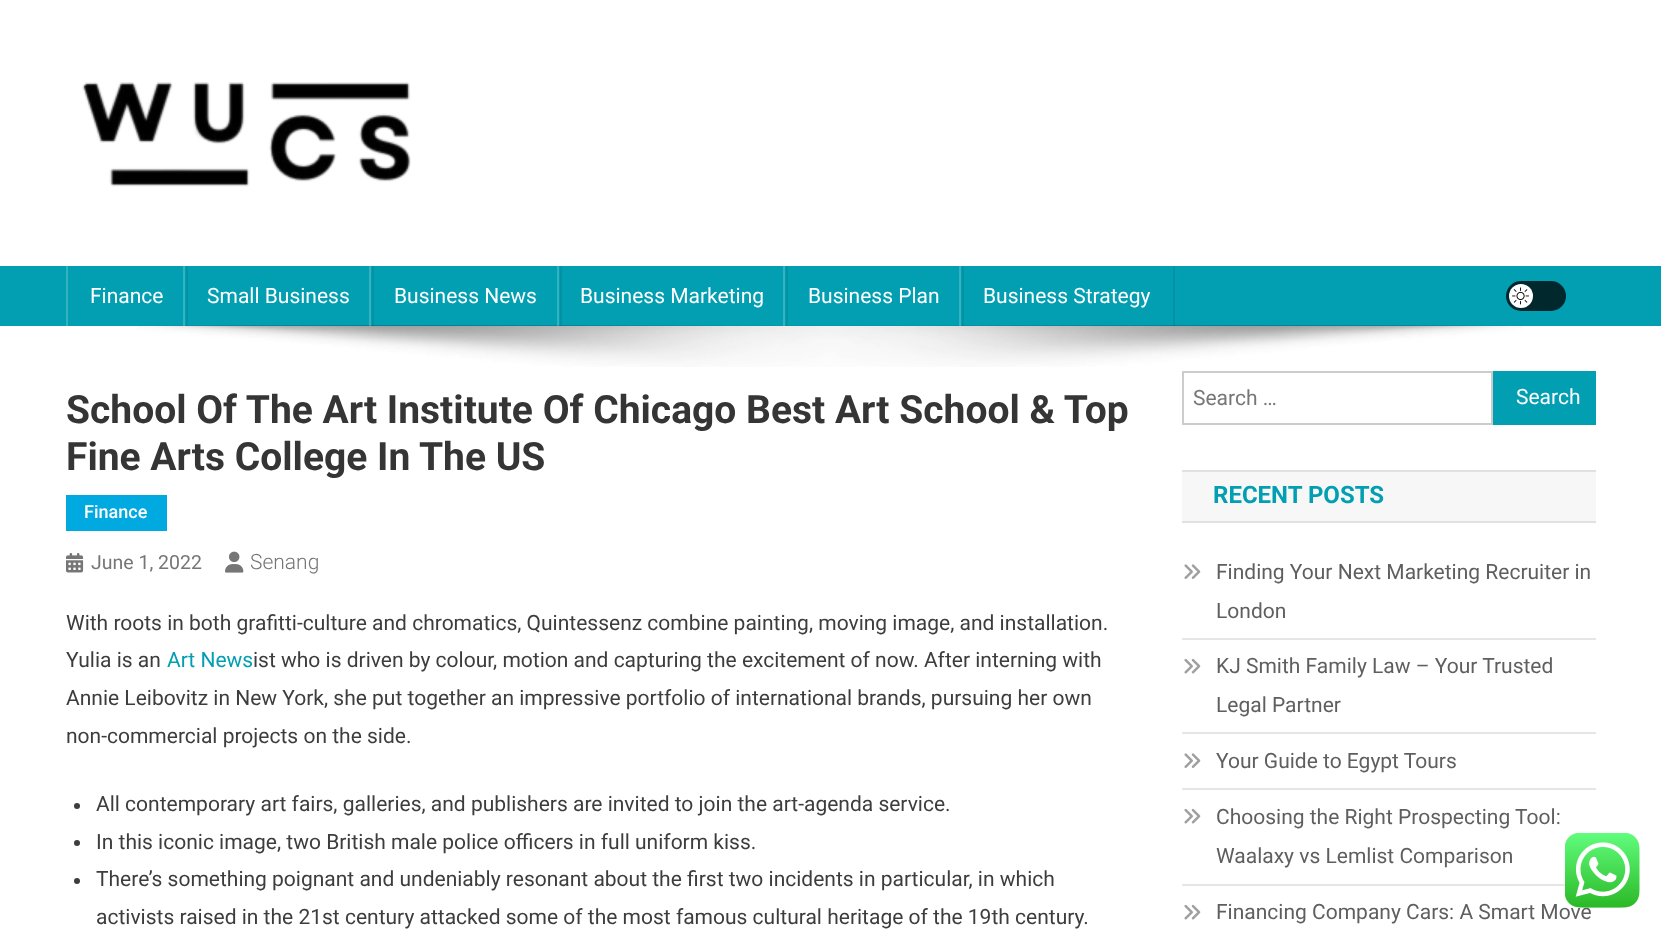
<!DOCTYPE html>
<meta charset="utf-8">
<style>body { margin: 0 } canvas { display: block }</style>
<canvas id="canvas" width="1661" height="930"></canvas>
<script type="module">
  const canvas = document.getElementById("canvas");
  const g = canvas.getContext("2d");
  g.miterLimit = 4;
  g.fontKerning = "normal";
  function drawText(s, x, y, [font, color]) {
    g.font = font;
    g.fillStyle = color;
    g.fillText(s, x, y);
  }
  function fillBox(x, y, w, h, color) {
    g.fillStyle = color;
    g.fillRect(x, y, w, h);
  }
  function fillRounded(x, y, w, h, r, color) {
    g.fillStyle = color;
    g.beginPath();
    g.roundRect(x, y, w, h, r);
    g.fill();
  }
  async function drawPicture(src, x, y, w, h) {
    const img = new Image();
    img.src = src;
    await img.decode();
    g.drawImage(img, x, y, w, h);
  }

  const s1 = ["21px Roboto", "#FFFFFF"];
  const s2 = ["bold 39px Roboto", "#353535"];
  const s3 = ["500 18px Roboto", "#FFFFFF"];
  const s4 = ["19.5px Roboto", "#767676"];
  const s5 = ["300 21px Roboto", "#767676"];
  const s6 = ["21px Roboto", "#3D3D3D"];
  const s7 = ["21px Roboto", "#029FB2"];
  const s8 = ["21px Roboto", "#767676"];
  const s9 = ["bold 24px Roboto", "#029FB2"];
  const s10 = ["21px Roboto", "#5F5F5F"];

  fillBox(0, 0, 1661, 930, "#FFFFFF");
  await drawPicture("pic1.png", 82, 82, 329, 105);
  fillBox(0, 266, 1661, 60, "#029FB2");
  await drawPicture("pic3.png", 137, 325, 1386, 42);
  fillBox(186, 266, 2, 60, "rgba(0, 0, 0, 0.08)");
  fillBox(66, 266, 2, 60, "#35B2C1");
  drawText("Finance", 90, 303, s1);
  fillBox(372, 266, 2, 60, "rgba(0, 0, 0, 0.08)");
  fillBox(183, 266, 2, 60, "rgba(255, 255, 255, 0.2)");
  drawText("Small Business", 207, 303, s1);
  fillBox(560, 266, 2, 60, "rgba(0, 0, 0, 0.08)");
  fillBox(369, 266, 2, 60, "rgba(255, 255, 255, 0.2)");
  drawText("Business News", 394, 303, s1);
  fillBox(786, 266, 2, 60, "rgba(0, 0, 0, 0.08)");
  fillBox(557, 266, 2, 60, "rgba(255, 255, 255, 0.2)");
  drawText("Business Marketing", 580, 303, s1);
  fillBox(962, 266, 2, 60, "rgba(0, 0, 0, 0.08)");
  fillBox(783, 266, 2, 60, "rgba(255, 255, 255, 0.2)");
  drawText("Business Plan", 808, 303, s1);
  fillBox(1173, 266, 2, 60, "rgba(0, 0, 0, 0.08)");
  fillBox(959, 266, 2, 60, "rgba(255, 255, 255, 0.2)");
  drawText("Business Strategy", 983, 303, s1);
  fillRounded(1506, 281, 60, 30, 15, "#01282D");
  g.fillStyle = "#FFFFFF";
  g.beginPath();
  g.arc(1521, 296, 12, 0, Math.PI * 2);
  g.fill();
  await drawPicture("pic2.png", 1512, 287, 17, 18);
  drawText("School Of The Art Institute Of Chicago Best Art School & Top", 66, 423, s2);
  drawText("Fine Arts College In The US", 66, 470, s2);
  fillBox(66, 495, 101, 36, "#00A9E0");
  drawText("Finance", 84, 518, s3);
  await drawPicture("pic4.png", 66, 553, 18, 20);
  drawText("June 1, 2022", 91, 569, s4);
  await drawPicture("pic5.png", 225, 551, 19, 22);
  drawText("Senang", 250, 569, s5);
  drawText("With roots in both grafitti-culture and chromatics, Quintessenz combine painting, moving image, and installation.", 66, 630, s6);
  drawText("Yulia is an", 66, 667, s6);
  drawText("Art News", 167, 667, s7);
  drawText("ist who is driven by colour, motion and capturing the excitement of now. After interning with", 253, 667, s6);
  drawText("Annie Leibovitz in New York, she put together an impressive portfolio of international brands, pursuing her own", 66, 705, s6);
  drawText("non-commercial projects on the side.", 66, 743, s6);
  g.beginPath();
  g.arc(77, 806, 3, 0, Math.PI * 2);
  g.fill();
  drawText("All contemporary art fairs, galleries, and publishers are invited to join the art-agenda service.", 96, 811, s6);
  g.beginPath();
  g.arc(77, 843, 3, 0, Math.PI * 2);
  g.fill();
  drawText("In this iconic image, two British male police officers in full uniform kiss.", 96, 849, s6);
  g.beginPath();
  g.arc(77, 881, 3, 0, Math.PI * 2);
  g.fill();
  drawText("There’s something poignant and undeniably resonant about the first two incidents in particular, in which", 96, 886, s6);
  drawText("activists raised in the 21st century attacked some of the most famous cultural heritage of the 19th century.", 96, 924, s6);
  g.strokeStyle = "#CCCCCC";
  g.lineWidth = 2;
  g.strokeRect(1183, 372, 309, 52);
  drawText("Search …", 1193, 405, s8);
  fillBox(1493, 371, 103, 54, "#029FB2");
  drawText("Search", 1516, 404, s1);
  fillBox(1182, 472, 414, 49, "#F7F7F7");
  fillBox(1182, 470, 414, 2, "#E1E1E1");
  fillBox(1182, 521, 414, 2, "#E1E1E1");
  drawText("RECENT POSTS", 1213, 503, s9);
  fillBox(1182, 638, 414, 2, "#E6E6E6");
  await drawPicture("pic6.png", 1184, 564, 17, 15);
  drawText("Finding Your Next Marketing Recruiter in", 1216, 579, s10);
  drawText("London", 1216, 618, s10);
  fillBox(1182, 732, 414, 2, "#E6E6E6");
  await drawPicture("pic7.png", 1184, 658, 17, 16);
  drawText("KJ Smith Family Law – Your Trusted", 1216, 673, s10);
  drawText("Legal Partner", 1216, 712, s10);
  fillBox(1182, 788, 414, 2, "#E6E6E6");
  await drawPicture("pic6.png", 1184, 753, 17, 15);
  drawText("Your Guide to Egypt Tours", 1216, 768, s10);
  fillBox(1182, 884, 383, 2, "#E6E6E6");
  await drawPicture("pic7.png", 1184, 808, 17, 16);
  drawText("Choosing the Right Prospecting Tool:", 1216, 824, s10);
  drawText("Waalaxy vs Lemlist Comparison", 1216, 863, s10);
  await drawPicture("pic7.png", 1184, 904, 17, 16);
  drawText("Financing Company Cars: A Smart Move", 1216, 919, s10);
  await drawPicture("pic8.png", 1565, 833, 75, 75);
</script>
